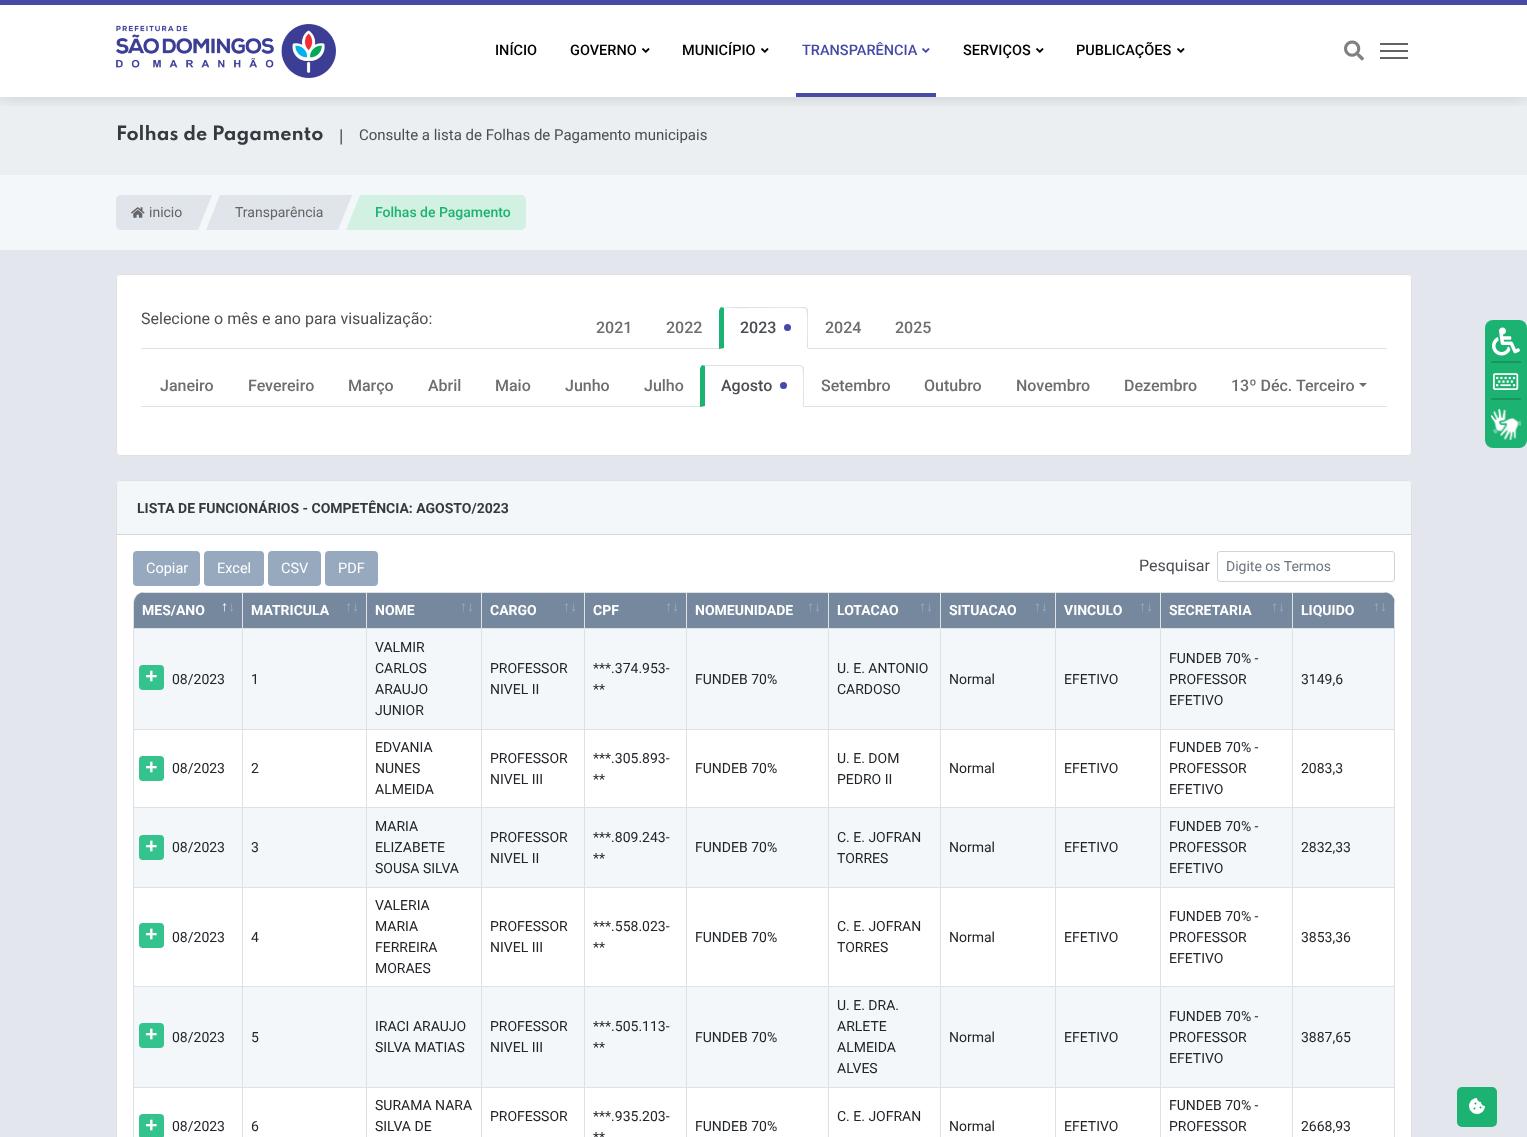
<!DOCTYPE html>
<meta charset="utf-8">
<style>body { margin: 0 } canvas { display: block }</style>
<canvas id="canvas" width="1527" height="1137"></canvas>
<script type="module">
  const canvas = document.getElementById("canvas");
  const g = canvas.getContext("2d");
  g.miterLimit = 4;
  g.fontKerning = "normal";
  function drawText(s, x, y, [font, color]) {
    g.font = font;
    g.fillStyle = color;
    g.fillText(s, x, y);
  }
  function fillBox(x, y, w, h, color) {
    g.fillStyle = color;
    g.fillRect(x, y, w, h);
  }
  function fillRounded(x, y, w, h, r, color) {
    g.fillStyle = color;
    g.beginPath();
    g.roundRect(x, y, w, h, r);
    g.fill();
  }
  async function drawPicture(src, x, y, w, h) {
    const img = new Image();
    img.src = src;
    await img.decode();
    g.drawImage(img, x, y, w, h);
  }

  const s1 = ["500 14.5px Roboto", "#000000"];
  const s2 = ["500 14.5px Roboto", "#4749A7"];
  const s3 = ["bold 17.6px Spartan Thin", "#343A40"];
  const s4 = ["18px Roboto", "#4A4E52"];
  const s5 = ["15px Roboto", "#4A4E52"];
  const s6 = ["14px Roboto", "#646464"];
  const s7 = ["500 14px Roboto", "#1CB272"];
  const s8 = ["16px Roboto", "#4A4E52"];
  const s9 = ["500 16px Roboto", "#6E6E6E"];
  const s10 = ["500 16px Roboto", "#4A4E52"];
  const s11 = ["bold 14px Roboto", "#343A40"];
  const s12 = ["14.5px Roboto", "#FFFFFF"];
  const s13 = ["14px Roboto", "#6C757D"];
  const s14 = ["bold 14px Roboto", "#FFFFFF"];
  const s15 = ["bold 14px Liberation Sans", "#FFFFFF"];
  const s16 = ["bold 14px Liberation Sans", "#9FACBA"];
  const s17 = ["bold 21px Liberation Mono", "#FFFFFF"];
  const s18 = ["14px Roboto", "#212529"];

  fillBox(0, 0, 1527, 1137, "#FFFFFF");
  fillBox(0, 97, 1527, 78, "#EBEFF2");
  g.save();
  g.beginPath();
  g.rect(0, 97, 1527, 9);
  g.clip();
  g.fillStyle = "rgba(0, 0, 0, 0.15)";
  g.filter = "blur(8.5px)";
  g.beginPath();
  g.rect(0, -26, 1527, 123);
  g.fill();
  g.filter = "none";
  g.restore();
  fillBox(0, 0, 1527, 5, "#4749A7");
  await drawPicture("pic1.png", 116, 24, 220, 54);
  drawText("INÍCIO", 495, 55, s1);
  drawText("GOVERNO", 570, 55, s1);
  await drawPicture("pic2.png", 642, 48, 8, 5);
  drawText("MUNICÍPIO", 682, 55, s1);
  await drawPicture("pic2.png", 761, 48, 8, 5);
  drawText("TRANSPARÊNCIA", 802, 55, s2);
  await drawPicture("pic3.png", 922, 48, 8, 5);
  fillBox(796, 93, 140, 4, "#4749A7");
  drawText("SERVIÇOS", 963, 55, s1);
  await drawPicture("pic2.png", 1036, 48, 8, 5);
  drawText("PUBLICAÇÕES", 1076, 55, s1);
  await drawPicture("pic2.png", 1177, 48, 8, 5);
  await drawPicture("pic4.png", 1344, 40, 20, 21);
  fillBox(1380, 43, 28, 2, "#636363");
  fillBox(1380, 50, 28, 2, "#636363");
  fillBox(1380, 57, 28, 2, "#636363");
  fillBox(0, 250, 1527, 887, "#E3E6ED");
  drawText("Folhas de Pagamento", 116, 140, s3);
  drawText("|", 339, 142, s4);
  drawText("Consulte a lista de Folhas de Pagamento municipais", 359, 140, s5);
  fillBox(0, 175, 1527, 75, "#F3F7FA");
  g.fillStyle = "#E0E5EB";
  g.beginPath();
  g.roundRect(116, 195, 82, 35, [5, 0, 0, 5]);
  g.fill();
  await drawPicture("pic5.png", 131, 207, 14, 11);
  drawText("inicio", 149, 217, s6);
  g.fillStyle = "#E0E5EB";
  g.beginPath();
  g.moveTo(198, 195);
  g.lineTo(212, 195);
  g.lineTo(198, 230);
  g.closePath();
  g.fill();
  fillBox(220, 195, 118, 35, "#E0E5EB");
  g.beginPath();
  g.moveTo(220, 230);
  g.lineTo(206, 230);
  g.lineTo(220, 195);
  g.closePath();
  g.fill();
  drawText("Transparência", 235, 217, s6);
  g.fillStyle = "#E0E5EB";
  g.beginPath();
  g.moveTo(338, 195);
  g.lineTo(352, 195);
  g.lineTo(338, 230);
  g.closePath();
  g.fill();
  g.fillStyle = "#D2F1E3";
  g.beginPath();
  g.roundRect(360, 195, 166, 35, [0, 5, 5, 0]);
  g.fill();
  g.beginPath();
  g.moveTo(360, 230);
  g.lineTo(346, 230);
  g.lineTo(360, 195);
  g.closePath();
  g.fill();
  drawText("Folhas de Pagamento", 375, 217, s7);
  fillRounded(116, 274, 1296, 182, 4, "#FFFFFF");
  g.beginPath();
  g.roundRect(116.5, 274.5, 1295, 181, 3.5);
  g.strokeStyle = "rgba(0, 0, 0, 0.12)";
  g.stroke();
  drawText("Selecione o mês e ano para visualização:", 141, 324, s8);
  fillBox(141, 348, 1246, 1, "#DEE2E6");
  drawText("2021", 596, 333, s9);
  drawText("2022", 666, 333, s9);
  g.fillStyle = "#DEE2E6";
  g.beginPath();
  g.moveTo(723, 307);
  g.lineTo(721, 307);
  g.bezierCurveTo(733, 310, 803, 306, 806, 309);
  g.lineTo(807, 308);
  g.lineTo(804, 307);
  g.closePath();
  g.fill();
  g.beginPath();
  g.moveTo(808, 349);
  g.lineTo(808, 311);
  g.bezierCurveTo(808, 310, 808, 309, 807, 308);
  g.lineTo(806, 309);
  g.bezierCurveTo(808, 311, 807, 343, 807, 348);
  g.closePath();
  g.fill();
  g.fillStyle = "#FFFFFF";
  g.beginPath();
  g.moveTo(808, 349);
  g.lineTo(807, 348);
  g.lineTo(724, 348);
  g.lineTo(719, 349);
  g.closePath();
  g.fill();
  g.fillStyle = "#1CB272";
  g.beginPath();
  g.moveTo(724, 308);
  g.lineTo(721, 307);
  g.bezierCurveTo(720, 308, 719, 310, 719, 311);
  g.lineTo(719, 349);
  g.lineTo(724, 348);
  g.closePath();
  g.fill();
  drawText("2023", 740, 333, s10);
  g.fillStyle = "#4749A7";
  g.beginPath();
  g.arc(787.5, 327.5, 3.5, 0, Math.PI * 2);
  g.fill();
  drawText("2024", 825, 333, s9);
  drawText("2025", 895, 333, s9);
  fillBox(141, 406, 1246, 1, "#DEE2E6");
  drawText("Janeiro", 160, 391, s9);
  drawText("Fevereiro", 248, 391, s9);
  drawText("Março", 348, 391, s9);
  drawText("Abril", 428, 391, s9);
  drawText("Maio", 495, 391, s9);
  drawText("Junho", 565, 391, s9);
  drawText("Julho", 644, 391, s9);
  g.fillStyle = "#DEE2E6";
  g.beginPath();
  g.moveTo(704, 365);
  g.lineTo(702, 365);
  g.lineTo(705, 366);
  g.lineTo(800, 366);
  g.lineTo(802, 367);
  g.lineTo(803, 366);
  g.lineTo(800, 365);
  g.closePath();
  g.fill();
  g.beginPath();
  g.moveTo(804, 407);
  g.lineTo(804, 369);
  g.bezierCurveTo(804, 368, 804, 367, 803, 366);
  g.lineTo(802, 367);
  g.bezierCurveTo(804, 369, 803, 401, 803, 406);
  g.closePath();
  g.fill();
  g.fillStyle = "#FFFFFF";
  g.beginPath();
  g.moveTo(804, 407);
  g.lineTo(803, 406);
  g.lineTo(705, 406);
  g.lineTo(700, 407);
  g.closePath();
  g.fill();
  g.fillStyle = "#1CB272";
  g.beginPath();
  g.moveTo(705, 366);
  g.lineTo(702, 365);
  g.bezierCurveTo(701, 366, 700, 368, 700, 369);
  g.lineTo(700, 407);
  g.lineTo(705, 406);
  g.closePath();
  g.fill();
  drawText("Agosto", 721, 391, s10);
  g.fillStyle = "#4749A7";
  g.beginPath();
  g.arc(783.5, 385.5, 3.5, 0, Math.PI * 2);
  g.fill();
  drawText("Setembro", 821, 391, s9);
  drawText("Outubro", 924, 391, s9);
  drawText("Novembro", 1016, 391, s9);
  drawText("Dezembro", 1124, 391, s9);
  drawText("13º Déc. Terceiro", 1231, 391, s9);
  g.beginPath();
  g.moveTo(1359, 383);
  g.lineTo(1367, 383);
  g.lineTo(1363, 387);
  g.closePath();
  g.fill();
  fillRounded(116, 480, 1296, 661, 4, "#FFFFFF");
  g.beginPath();
  g.roundRect(116.5, 480.5, 1295, 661, 3.5);
  g.stroke();
  g.fillStyle = "#F3F7FA";
  g.beginPath();
  g.roundRect(117, 481, 1294, 54, [3, 3, 0, 0]);
  g.fill();
  fillBox(117, 534, 1294, 1, "#D5D8DB");
  drawText("LISTA DE FUNCIONÁRIOS - COMPETÊNCIA: AGOSTO/2023", 137, 513, s11);
  fillRounded(133, 551, 67, 35, 4, "#96A9BF");
  drawText("Copiar", 146, 573, s12);
  fillRounded(204, 551, 60, 35, 4, "#96A9BF");
  drawText("Excel", 217, 573, s12);
  fillRounded(268, 551, 53, 35, 4, "#96A9BF");
  drawText("CSV", 281, 573, s12);
  fillRounded(325, 551, 53, 35, 4, "#96A9BF");
  drawText("PDF", 338, 573, s12);
  drawText("Pesquisar", 1139, 571, s8);
  g.beginPath();
  g.roundRect(1217.5, 551.5, 177, 30, 2.5);
  g.strokeStyle = "#CED4DA";
  g.stroke();
  drawText("Digite os Termos", 1226, 571, s13);
  g.fillStyle = "#DEE2E6";
  g.beginPath();
  g.moveTo(144, 592);
  g.lineTo(1384, 592);
  g.bezierCurveTo(1390, 592, 1395, 597, 1395, 603);
  g.lineTo(1395, 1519);
  g.bezierCurveTo(1395, 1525, 1390, 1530, 1384, 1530);
  g.lineTo(144, 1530);
  g.bezierCurveTo(138, 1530, 133, 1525, 133, 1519);
  g.lineTo(133, 603);
  g.bezierCurveTo(133, 597, 138, 592, 144, 592);
  g.closePath();
  g.moveTo(144, 592);
  g.lineTo(1384, 592);
  g.bezierCurveTo(1390, 592, 1395, 597, 1395, 603);
  g.lineTo(1395, 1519);
  g.bezierCurveTo(1395, 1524, 1390, 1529, 1384, 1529);
  g.lineTo(144, 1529);
  g.bezierCurveTo(139, 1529, 134, 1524, 134, 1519);
  g.lineTo(134, 603);
  g.bezierCurveTo(134, 597, 139, 592, 144, 592);
  g.closePath();
  g.fill("evenodd");
  g.fillStyle = "#76889D";
  g.beginPath();
  g.moveTo(144, 592);
  g.bezierCurveTo(139, 592, 134, 597, 134, 603);
  g.lineTo(134, 629);
  g.lineTo(1395, 629);
  g.lineTo(1395, 603);
  g.bezierCurveTo(1395, 597, 1390, 592, 1384, 592);
  g.closePath();
  g.fill();
  g.fillStyle = "#DEE2E6";
  g.beginPath();
  g.moveTo(144, 592);
  g.lineTo(1384, 592);
  g.lineTo(1388, 593);
  g.lineTo(140, 593);
  g.closePath();
  g.fill();
  fillBox(134, 628, 1261, 1, "#DEE2E6");
  fillBox(134, 729, 1261, 1, "#DEE2E6");
  fillBox(134, 807, 1261, 1, "#DEE2E6");
  fillBox(134, 887, 1261, 1, "#DEE2E6");
  fillBox(134, 986, 1261, 1, "#DEE2E6");
  fillBox(134, 1087, 1261, 1, "#DEE2E6");
  fillBox(242, 592, 1, 545, "#DEE2E6");
  drawText("MES/ANO", 142, 615, s14);
  drawText("↑", 221, 611, s15);
  drawText("↓", 228, 611, s16);
  drawText("MATRICULA", 251, 615, s14);
  drawText("↑↓", 345, 611, s16);
  drawText("NOME", 375, 615, s14);
  drawText("↑↓", 460, 611, s16);
  drawText("CARGO", 490, 615, s14);
  drawText("↑↓", 563, 611, s16);
  drawText("CPF", 593, 615, s14);
  drawText("↑↓", 665, 611, s16);
  drawText("NOMEUNIDADE", 695, 615, s14);
  drawText("↑↓", 807, 611, s16);
  drawText("LOTACAO", 837, 615, s14);
  drawText("↑↓", 919, 611, s16);
  drawText("SITUACAO", 949, 615, s14);
  drawText("↑↓", 1034, 611, s16);
  drawText("VINCULO", 1064, 615, s14);
  drawText("↑↓", 1139, 611, s16);
  drawText("SECRETARIA", 1169, 615, s14);
  drawText("↑↓", 1271, 611, s16);
  g.fillStyle = "#DEE2E6";
  g.beginPath();
  g.moveTo(1395, 629);
  g.lineTo(1395, 603);
  g.bezierCurveTo(1395, 601.5, 1394.5, 600, 1394, 598.5);
  g.lineTo(1394, 629);
  g.closePath();
  g.fill();
  drawText("LIQUIDO", 1301, 615, s14);
  drawText("↑↓", 1373, 611, s16);
  fillBox(134, 629, 108, 100, "#F3F7FA");
  fillRounded(139, 665, 25, 25, 4, "#34C38C");
  drawText("+", 145, 683, s17);
  drawText("08/2023", 172, 684, s18);
  fillBox(243, 629, 123, 100, "#F3F7FA");
  fillBox(366, 592, 1, 137, "#DEE2E6");
  drawText("1", 251, 684, s18);
  fillBox(367, 629, 114, 100, "#F3F7FA");
  fillBox(481, 592, 1, 137, "#DEE2E6");
  drawText("VALMIR", 375, 652, s18);
  drawText("CARLOS", 375, 673, s18);
  drawText("ARAUJO", 375, 694, s18);
  drawText("JUNIOR", 375, 715, s18);
  fillBox(482, 629, 102, 100, "#F3F7FA");
  fillBox(584, 592, 1, 137, "#DEE2E6");
  drawText("PROFESSOR", 490, 673, s18);
  drawText("NIVEL II", 490, 694, s18);
  fillBox(585, 629, 101, 100, "#F3F7FA");
  fillBox(686, 592, 1, 137, "#DEE2E6");
  drawText("***.374.953-", 593, 673, s18);
  drawText("**", 593, 694, s18);
  fillBox(687, 629, 141, 100, "#F3F7FA");
  fillBox(828, 592, 1, 137, "#DEE2E6");
  drawText("FUNDEB 70%", 695, 684, s18);
  fillBox(829, 629, 111, 100, "#F3F7FA");
  fillBox(940, 592, 1, 137, "#DEE2E6");
  drawText("U. E. ANTONIO", 837, 673, s18);
  drawText("CARDOSO", 837, 694, s18);
  fillBox(941, 629, 114, 100, "#F3F7FA");
  fillBox(1055, 592, 1, 137, "#DEE2E6");
  drawText("Normal", 949, 684, s18);
  fillBox(1056, 629, 104, 100, "#F3F7FA");
  fillBox(1160, 592, 1, 137, "#DEE2E6");
  drawText("EFETIVO", 1064, 684, s18);
  fillBox(1161, 629, 131, 100, "#F3F7FA");
  fillBox(1292, 592, 1, 137, "#DEE2E6");
  drawText("FUNDEB 70% -", 1169, 663, s18);
  drawText("PROFESSOR", 1169, 684, s18);
  drawText("EFETIVO", 1169, 705, s18);
  fillBox(1293, 629, 101, 100, "#F3F7FA");
  fillBox(1394, 629, 1, 100, "#DEE2E6");
  drawText("3149,6", 1301, 684, s18);
  fillRounded(139, 756, 25, 25, 4, "#34C38C");
  drawText("+", 145, 774, s17);
  drawText("08/2023", 172, 773, s18);
  fillBox(366, 729, 1, 158, "#DEE2E6");
  drawText("2", 251, 773, s18);
  fillBox(481, 729, 1, 158, "#DEE2E6");
  drawText("EDVANIA", 375, 752, s18);
  drawText("NUNES", 375, 773, s18);
  drawText("ALMEIDA", 375, 794, s18);
  fillBox(584, 729, 1, 158, "#DEE2E6");
  drawText("PROFESSOR", 490, 763, s18);
  drawText("NIVEL III", 490, 784, s18);
  fillBox(686, 729, 1, 158, "#DEE2E6");
  drawText("***.305.893-", 593, 763, s18);
  drawText("**", 593, 784, s18);
  fillBox(828, 729, 1, 158, "#DEE2E6");
  drawText("FUNDEB 70%", 695, 773, s18);
  fillBox(940, 729, 1, 158, "#DEE2E6");
  drawText("U. E. DOM", 837, 763, s18);
  drawText("PEDRO II", 837, 784, s18);
  fillBox(1055, 729, 1, 158, "#DEE2E6");
  drawText("Normal", 949, 773, s18);
  fillBox(1160, 729, 1, 158, "#DEE2E6");
  drawText("EFETIVO", 1064, 773, s18);
  fillBox(1292, 729, 1, 158, "#DEE2E6");
  drawText("FUNDEB 70% -", 1169, 752, s18);
  drawText("PROFESSOR", 1169, 773, s18);
  drawText("EFETIVO", 1169, 794, s18);
  fillBox(1394, 729, 1, 158, "#DEE2E6");
  drawText("2083,3", 1301, 773, s18);
  fillBox(134, 808, 108, 79, "#F3F7FA");
  fillRounded(139, 835, 25, 25, 4, "#34C38C");
  drawText("+", 145, 853, s17);
  drawText("08/2023", 172, 852, s18);
  fillBox(243, 808, 123, 79, "#F3F7FA");
  drawText("3", 251, 852, s18);
  fillBox(367, 808, 114, 79, "#F3F7FA");
  drawText("MARIA", 375, 831, s18);
  drawText("ELIZABETE", 375, 852, s18);
  drawText("SOUSA SILVA", 375, 873, s18);
  fillBox(482, 808, 102, 79, "#F3F7FA");
  drawText("PROFESSOR", 490, 842, s18);
  drawText("NIVEL II", 490, 863, s18);
  fillBox(585, 808, 101, 79, "#F3F7FA");
  drawText("***.809.243-", 593, 842, s18);
  drawText("**", 593, 863, s18);
  fillBox(687, 808, 141, 79, "#F3F7FA");
  drawText("FUNDEB 70%", 695, 852, s18);
  fillBox(829, 808, 111, 79, "#F3F7FA");
  drawText("C. E. JOFRAN", 837, 842, s18);
  drawText("TORRES", 837, 863, s18);
  fillBox(941, 808, 114, 79, "#F3F7FA");
  drawText("Normal", 949, 852, s18);
  fillBox(1056, 808, 104, 79, "#F3F7FA");
  drawText("EFETIVO", 1064, 852, s18);
  fillBox(1161, 808, 131, 79, "#F3F7FA");
  drawText("FUNDEB 70% -", 1169, 831, s18);
  drawText("PROFESSOR", 1169, 852, s18);
  drawText("EFETIVO", 1169, 873, s18);
  fillBox(1293, 808, 101, 79, "#F3F7FA");
  drawText("2832,33", 1301, 852, s18);
  fillRounded(139, 923, 25, 25, 4, "#34C38C");
  drawText("+", 145, 941, s17);
  drawText("08/2023", 172, 942, s18);
  fillBox(366, 887, 1, 200, "#DEE2E6");
  drawText("4", 251, 942, s18);
  fillBox(481, 887, 1, 200, "#DEE2E6");
  drawText("VALERIA", 375, 910, s18);
  drawText("MARIA", 375, 931, s18);
  drawText("FERREIRA", 375, 952, s18);
  drawText("MORAES", 375, 973, s18);
  fillBox(584, 887, 1, 200, "#DEE2E6");
  drawText("PROFESSOR", 490, 931, s18);
  drawText("NIVEL III", 490, 952, s18);
  fillBox(686, 887, 1, 200, "#DEE2E6");
  drawText("***.558.023-", 593, 931, s18);
  drawText("**", 593, 952, s18);
  fillBox(828, 887, 1, 200, "#DEE2E6");
  drawText("FUNDEB 70%", 695, 942, s18);
  fillBox(940, 887, 1, 200, "#DEE2E6");
  drawText("C. E. JOFRAN", 837, 931, s18);
  drawText("TORRES", 837, 952, s18);
  fillBox(1055, 887, 1, 200, "#DEE2E6");
  drawText("Normal", 949, 942, s18);
  fillBox(1160, 887, 1, 200, "#DEE2E6");
  drawText("EFETIVO", 1064, 942, s18);
  fillBox(1292, 887, 1, 200, "#DEE2E6");
  drawText("FUNDEB 70% -", 1169, 921, s18);
  drawText("PROFESSOR", 1169, 942, s18);
  drawText("EFETIVO", 1169, 963, s18);
  fillBox(1394, 887, 1, 200, "#DEE2E6");
  drawText("3853,36", 1301, 942, s18);
  fillBox(134, 987, 108, 100, "#F3F7FA");
  fillRounded(139, 1023, 25, 25, 4, "#34C38C");
  drawText("+", 145, 1041, s17);
  drawText("08/2023", 172, 1042, s18);
  fillBox(243, 987, 123, 100, "#F3F7FA");
  drawText("5", 251, 1042, s18);
  fillBox(367, 987, 114, 100, "#F3F7FA");
  drawText("IRACI ARAUJO", 375, 1031, s18);
  drawText("SILVA MATIAS", 375, 1052, s18);
  fillBox(482, 987, 102, 100, "#F3F7FA");
  drawText("PROFESSOR", 490, 1031, s18);
  drawText("NIVEL III", 490, 1052, s18);
  fillBox(585, 987, 101, 100, "#F3F7FA");
  drawText("***.505.113-", 593, 1031, s18);
  drawText("**", 593, 1052, s18);
  fillBox(687, 987, 141, 100, "#F3F7FA");
  drawText("FUNDEB 70%", 695, 1042, s18);
  fillBox(829, 987, 111, 100, "#F3F7FA");
  drawText("U. E. DRA.", 837, 1010, s18);
  drawText("ARLETE", 837, 1031, s18);
  drawText("ALMEIDA", 837, 1052, s18);
  drawText("ALVES", 837, 1073, s18);
  fillBox(941, 987, 114, 100, "#F3F7FA");
  drawText("Normal", 949, 1042, s18);
  fillBox(1056, 987, 104, 100, "#F3F7FA");
  drawText("EFETIVO", 1064, 1042, s18);
  fillBox(1161, 987, 131, 100, "#F3F7FA");
  drawText("FUNDEB 70% -", 1169, 1021, s18);
  drawText("PROFESSOR", 1169, 1042, s18);
  drawText("EFETIVO", 1169, 1063, s18);
  fillBox(1293, 987, 101, 100, "#F3F7FA");
  drawText("3887,65", 1301, 1042, s18);
  fillBox(481, 1087, 1, 50, "#DEE2E6");
  drawText("SURAMA NARA", 375, 1110, s18);
  drawText("SILVA DE", 375, 1131, s18);
  fillBox(584, 1087, 1, 50, "#DEE2E6");
  drawText("PROFESSOR", 490, 1121, s18);
  fillBox(686, 1087, 1, 50, "#DEE2E6");
  drawText("***.935.203-", 593, 1121, s18);
  drawText("**", 593, 1142, s18);
  fillBox(940, 1087, 1, 50, "#DEE2E6");
  drawText("C. E. JOFRAN", 837, 1121, s18);
  fillBox(1292, 1087, 1, 50, "#DEE2E6");
  drawText("FUNDEB 70% -", 1169, 1110, s18);
  drawText("PROFESSOR", 1169, 1131, s18);
  fillRounded(139, 1114, 25, 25, 4, "#34C38C");
  drawText("+", 145, 1132, s17);
  drawText("08/2023", 172, 1131, s18);
  fillBox(366, 1087, 1, 50, "#DEE2E6");
  drawText("6", 251, 1131, s18);
  fillBox(828, 1087, 1, 50, "#DEE2E6");
  drawText("FUNDEB 70%", 695, 1131, s18);
  fillBox(1055, 1087, 1, 50, "#DEE2E6");
  drawText("Normal", 949, 1131, s18);
  fillBox(1160, 1087, 1, 50, "#DEE2E6");
  drawText("EFETIVO", 1064, 1131, s18);
  fillBox(1394, 1087, 1, 50, "#DEE2E6");
  drawText("2668,93", 1301, 1131, s18);
  fillRounded(1485, 320, 42, 128, 8, "#1CB272");
  fillBox(1491, 361, 30, 2, "#189660");
  await drawPicture("pic6.png", 1492, 327, 28, 29);
  fillBox(1491, 398, 30, 2, "#189660");
  await drawPicture("pic7.png", 1493, 373, 26, 17);
  await drawPicture("pic8.png", 1491, 409, 30, 31);
  fillRounded(1457, 1087, 40, 40, 5, "#1CB272");
  await drawPicture("pic9.png", 1469, 1098, 16, 16);
</script>
